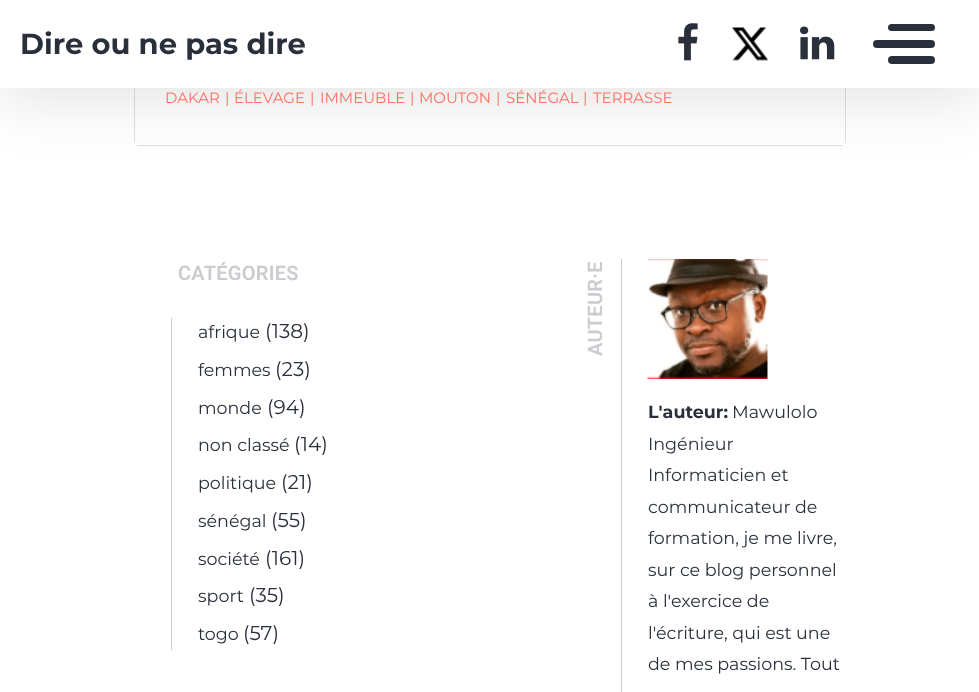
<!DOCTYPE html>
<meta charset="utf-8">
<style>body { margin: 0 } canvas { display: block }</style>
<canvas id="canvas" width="979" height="692"></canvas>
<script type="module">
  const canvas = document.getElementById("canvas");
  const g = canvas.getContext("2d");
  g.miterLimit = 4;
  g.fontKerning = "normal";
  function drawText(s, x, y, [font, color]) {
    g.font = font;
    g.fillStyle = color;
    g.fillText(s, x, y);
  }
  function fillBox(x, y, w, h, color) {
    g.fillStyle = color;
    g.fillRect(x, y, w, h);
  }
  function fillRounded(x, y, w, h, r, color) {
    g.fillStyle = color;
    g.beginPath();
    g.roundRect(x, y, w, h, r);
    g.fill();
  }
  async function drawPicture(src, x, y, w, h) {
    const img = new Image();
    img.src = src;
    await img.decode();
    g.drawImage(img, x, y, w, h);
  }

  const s1 = ["bold 29px Montserrat", "#2A303B"];
  const s2 = ["100 15px Montserrat", "#FF7061"];
  const s3 = ["600 20px Roboto", "#CACCCF"];
  const s4 = ["100 17.5px Montserrat", "#2A303B"];
  const s5 = ["100 20px Montserrat", "#2A303B"];
  const s6 = ["bold 17.5px Montserrat", "#2A303B"];

  fillBox(0, 0, 979, 692, "#FFFFFF");
  g.beginPath();
  g.roundRect(134.5, -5.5, 711, 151, 4.5);
  g.strokeStyle = "#E0E0E0";
  g.stroke();
  fillBox(135, 142, 710, 3, "#FFFFFF");
  g.fillStyle = "rgba(0, 0, 0, 0.11)";
  g.filter = "blur(31px)";
  g.beginPath();
  g.rect(0, 13, 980, 87);
  g.fill();
  g.filter = "none";
  fillBox(0, 0, 979, 88, "#FFFFFF");
  drawText("Dire ou ne pas dire", 20, 54, s1);
  await drawPicture("pic1.png", 678, 23, 20, 38);
  await drawPicture("pic2.png", 731, 27, 37, 34);
  await drawPicture("pic3.png", 800, 26, 35, 34);
  fillRounded(873, 40, 62, 8, 4, "#2A303B");
  fillRounded(888, 24, 47, 7, 3.5, "#2A303B");
  fillRounded(888, 56, 47, 8, 4, "#2A303B");
  drawText("DAKAR", 165, 103, s2);
  drawText("|", 225, 103, s2);
  drawText("ÉLEVAGE", 234, 103, s2);
  drawText("|", 310, 103, s2);
  drawText("IMMEUBLE", 320, 103, s2);
  drawText("|", 410, 103, s2);
  drawText("MOUTON", 419, 103, s2);
  drawText("|", 496, 103, s2);
  drawText("SÉNÉGAL", 506, 103, s2);
  drawText("|", 583, 103, s2);
  drawText("TERRASSE", 593, 103, s2);
  g.letterSpacing = "0.25px";
  drawText("CATÉGORIES", 178, 280, s3);
  fillBox(171, 318, 1, 332, "#CACCCF");
  g.letterSpacing = "0px";
  drawText("afrique", 198, 338, s4);
  drawText("(138)", 265, 338, s5);
  drawText("femmes", 198, 376, s4);
  drawText("(23)", 275, 376, s5);
  drawText("monde", 198, 414, s4);
  drawText("(94)", 267, 414, s5);
  drawText("non classé", 198, 451, s4);
  drawText("(14)", 294, 451, s5);
  drawText("politique", 198, 489, s4);
  drawText("(21)", 281, 489, s5);
  drawText("sénégal", 198, 527, s4);
  drawText("(55)", 271, 527, s5);
  drawText("société", 198, 565, s4);
  drawText("(161)", 265, 565, s5);
  drawText("sport", 198, 602, s4);
  drawText("(35)", 249, 602, s5);
  drawText("togo", 198, 640, s4);
  drawText("(57)", 243, 640, s5);
  g.letterSpacing = "0.25px";
  g.font = "600 20px Roboto";
  g.fillStyle = "#CACCCF";
  g.save();
  g.translate(602, 356);
  g.rotate(-90 * Math.PI / 180);
  g.fillText("AUTEUR·E", 0, 0);
  g.restore();
  fillBox(621, 259, 1, 433, "#CACCCF");
  await drawPicture("pic4.png", 647, 259, 121, 120);
  g.letterSpacing = "0px";
  drawText("L'auteur:", 648, 418, s6);
  drawText("Mawulolo", 732, 418, s4);
  drawText("Ingénieur", 648, 450, s4);
  drawText("Informaticien et", 648, 481, s4);
  drawText("communicateur de", 648, 513, s4);
  drawText("formation, je me livre,", 648, 544, s4);
  drawText("sur ce blog personnel", 648, 576, s4);
  drawText("à l'exercice de", 648, 607, s4);
  drawText("l'écriture, qui est une", 648, 639, s4);
  drawText("de mes passions. Tout", 648, 670, s4);
</script>
